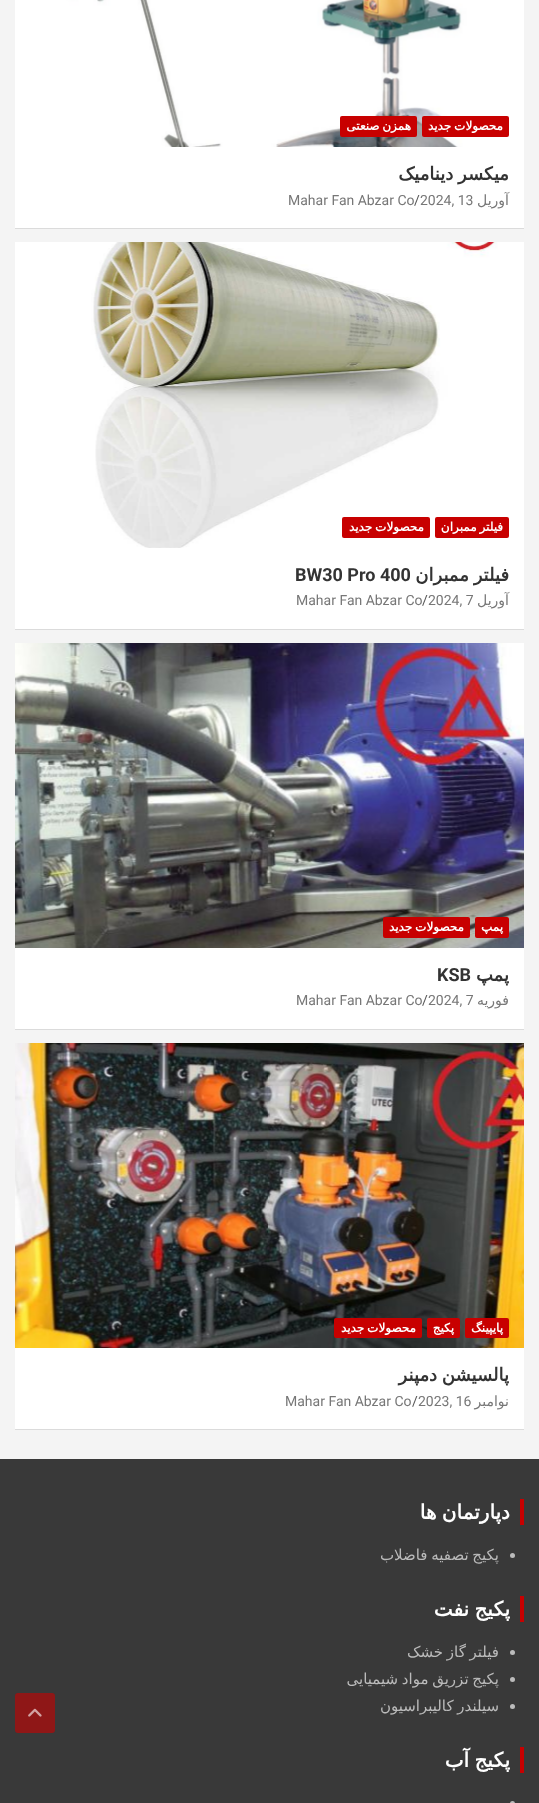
<!DOCTYPE html>
<meta charset="utf-8">
<style>body { margin: 0 } canvas { display: block }</style>
<canvas id="canvas" width="539" height="1803"></canvas>
<script type="module">
  const canvas = document.getElementById("canvas");
  const g = canvas.getContext("2d");
  g.miterLimit = 4;
  g.fontKerning = "normal";
  function drawText(s, x, y, [font, color]) {
    g.font = font;
    g.fillStyle = color;
    g.fillText(s, x, y);
  }
  function fillBox(x, y, w, h, color) {
    g.fillStyle = color;
    g.fillRect(x, y, w, h);
  }
  function fillRounded(x, y, w, h, r, color) {
    g.fillStyle = color;
    g.beginPath();
    g.roundRect(x, y, w, h, r);
    g.fill();
  }
  async function drawPicture(src, x, y, w, h) {
    const img = new Image();
    img.src = src;
    await img.decode();
    g.drawImage(img, x, y, w, h);
  }

  const s1 = ["bold 12px DejaVu Sans", "#FFFFFF"];
  const s2 = ["bold 18px DejaVu Sans", "#333333"];
  const s3 = ["14px DejaVu Sans", "#777777"];
  const s4 = ["14px Roboto", "#777777"];
  const s5 = ["14px Roboto", "#555555"];
  const s6 = ["bold 18px Roboto", "#333333"];
  const s7 = ["bold 20px DejaVu Sans", "#FFFFFF"];
  const s8 = ["15px DejaVu Sans", "#BBBBBB"];

  fillBox(0, 0, 539, 1803, "#F4F4F4");
  g.fillStyle = "rgba(0, 0, 0, 0.1)";
  g.filter = "blur(0.5px)";
  g.beginPath();
  g.rect(15, -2, 509, 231);
  g.fill();
  g.filter = "none";
  fillBox(15, 147, 509, 81, "#FFFFFF");
  await drawPicture("pic1.png", 15, 0, 509, 147);
  fillRounded(422, 116, 87, 21, 2, "#C80000");
  g.wordSpacing = "-1px";
  g.direction = "rtl";
  drawText("محصولات جدید", 503, 130, s1);
  fillRounded(340, 116, 77, 21, 2, "#C80000");
  drawText("همزن صنعتی", 411, 130, s1);
  drawText("میکسر دینامیک", 509, 180, s2);
  g.wordSpacing = "0px";
  drawText("آوریل", 509, 205, s3);
  g.direction = "ltr";
  drawText("2024, 13", 420, 205, s4);
  drawText("/", 414, 205, s5);
  drawText("Mahar Fan Abzar Co", 288, 205, s4);
  g.fillStyle = "rgba(0, 0, 0, 0.1)";
  g.filter = "blur(0.5px)";
  g.beginPath();
  g.rect(15, 243, 509, 387);
  g.fill();
  g.filter = "none";
  fillBox(15, 547, 509, 82, "#FFFFFF");
  await drawPicture("pic2.png", 15, 242, 509, 306);
  fillRounded(435, 517, 74, 21, 2, "#C80000");
  g.wordSpacing = "-1px";
  g.direction = "rtl";
  drawText("فیلتر ممبران", 503, 531, s1);
  fillRounded(342, 517, 88, 21, 2, "#C80000");
  drawText("محصولات جدید", 424, 531, s1);
  drawText("فیلتر ممبران", 509, 581, s2);
  g.wordSpacing = "0px";
  g.direction = "ltr";
  drawText("BW30 Pro 400", 295, 581, s6);
  g.direction = "rtl";
  drawText("آوریل", 509, 605, s3);
  g.direction = "ltr";
  drawText("2024, 7", 428, 605, s4);
  drawText("/", 422, 605, s5);
  drawText("Mahar Fan Abzar Co", 296, 605, s4);
  g.fillStyle = "rgba(0, 0, 0, 0.1)";
  g.filter = "blur(0.5px)";
  g.beginPath();
  g.rect(15, 644, 509, 386);
  g.fill();
  g.filter = "none";
  fillBox(15, 948, 509, 81, "#FFFFFF");
  await drawPicture("pic3.png", 15, 643, 509, 305);
  fillRounded(475, 917, 34, 21, 2, "#C80000");
  g.direction = "rtl";
  drawText("پمپ", 503, 931, s1);
  fillRounded(383, 917, 87, 21, 2, "#C80000");
  g.wordSpacing = "-1px";
  drawText("محصولات جدید", 464, 931, s1);
  g.wordSpacing = "0px";
  drawText("پمپ", 509, 981, s2);
  g.direction = "ltr";
  drawText("KSB", 437, 981, s6);
  g.direction = "rtl";
  drawText("فوریه", 509, 1005, s3);
  g.direction = "ltr";
  drawText("2024, 7", 428, 1005, s4);
  drawText("/", 422, 1005, s5);
  drawText("Mahar Fan Abzar Co", 296, 1005, s4);
  g.fillStyle = "rgba(0, 0, 0, 0.1)";
  g.filter = "blur(0.5px)";
  g.beginPath();
  g.rect(15, 1044, 509, 386);
  g.fill();
  g.filter = "none";
  fillBox(15, 1348, 509, 81, "#FFFFFF");
  await drawPicture("pic4.png", 15, 1043, 509, 305);
  fillRounded(465, 1318, 44, 20, 2, "#C80000");
  g.direction = "rtl";
  drawText("پایپینگ", 503, 1332, s1);
  fillRounded(427, 1318, 33, 20, 2, "#C80000");
  drawText("پکیج", 454, 1332, s1);
  fillRounded(334, 1318, 88, 20, 2, "#C80000");
  g.wordSpacing = "-1px";
  drawText("محصولات جدید", 416, 1332, s1);
  drawText("پالسیشن دمپنر", 509, 1381, s2);
  g.wordSpacing = "0px";
  drawText("نوامبر", 509, 1406, s3);
  g.direction = "ltr";
  drawText("2023, 16", 418, 1406, s4);
  drawText("/", 412, 1406, s5);
  drawText("Mahar Fan Abzar Co", 285, 1406, s4);
  fillBox(0, 1459, 539, 344, "#393939");
  fillBox(520, 1499, 4, 26, "#C80000");
  g.wordSpacing = "-1px";
  g.direction = "rtl";
  drawText("دپارتمان ها", 510, 1519, s7);
  g.fillStyle = "#BBBBBB";
  g.beginPath();
  g.arc(512.5, 1555.5, 2.5, 0, Math.PI * 2);
  g.fill();
  drawText("پکیج تصفیه فاضلاب", 499, 1560, s8);
  fillBox(520, 1596, 4, 26, "#C80000");
  drawText("پکیج نفت", 510, 1616, s7);
  g.fillStyle = "#BBBBBB";
  g.beginPath();
  g.arc(512.5, 1652.5, 2.5, 0, Math.PI * 2);
  g.fill();
  drawText("فیلتر گاز خشک", 499, 1657, s8);
  g.beginPath();
  g.arc(512.5, 1679.5, 2.5, 0, Math.PI * 2);
  g.fill();
  drawText("پکیج تزریق مواد شیمیایی", 499, 1684, s8);
  g.beginPath();
  g.arc(512.5, 1706.5, 2.5, 0, Math.PI * 2);
  g.fill();
  drawText("سیلندر کالیبراسیون", 499, 1711, s8);
  fillBox(520, 1747, 4, 26, "#C80000");
  drawText("پکیج آب", 510, 1767, s7);
  g.fillStyle = "#BBBBBB";
  g.beginPath();
  g.arc(512.5, 1803.5, 2.5, 0, Math.PI * 2);
  g.fill();
  fillRounded(15, 1693, 40, 40, 3, "#8F1717");
  await drawPicture("pic5.png", 28, 1708, 14, 9);
</script>
